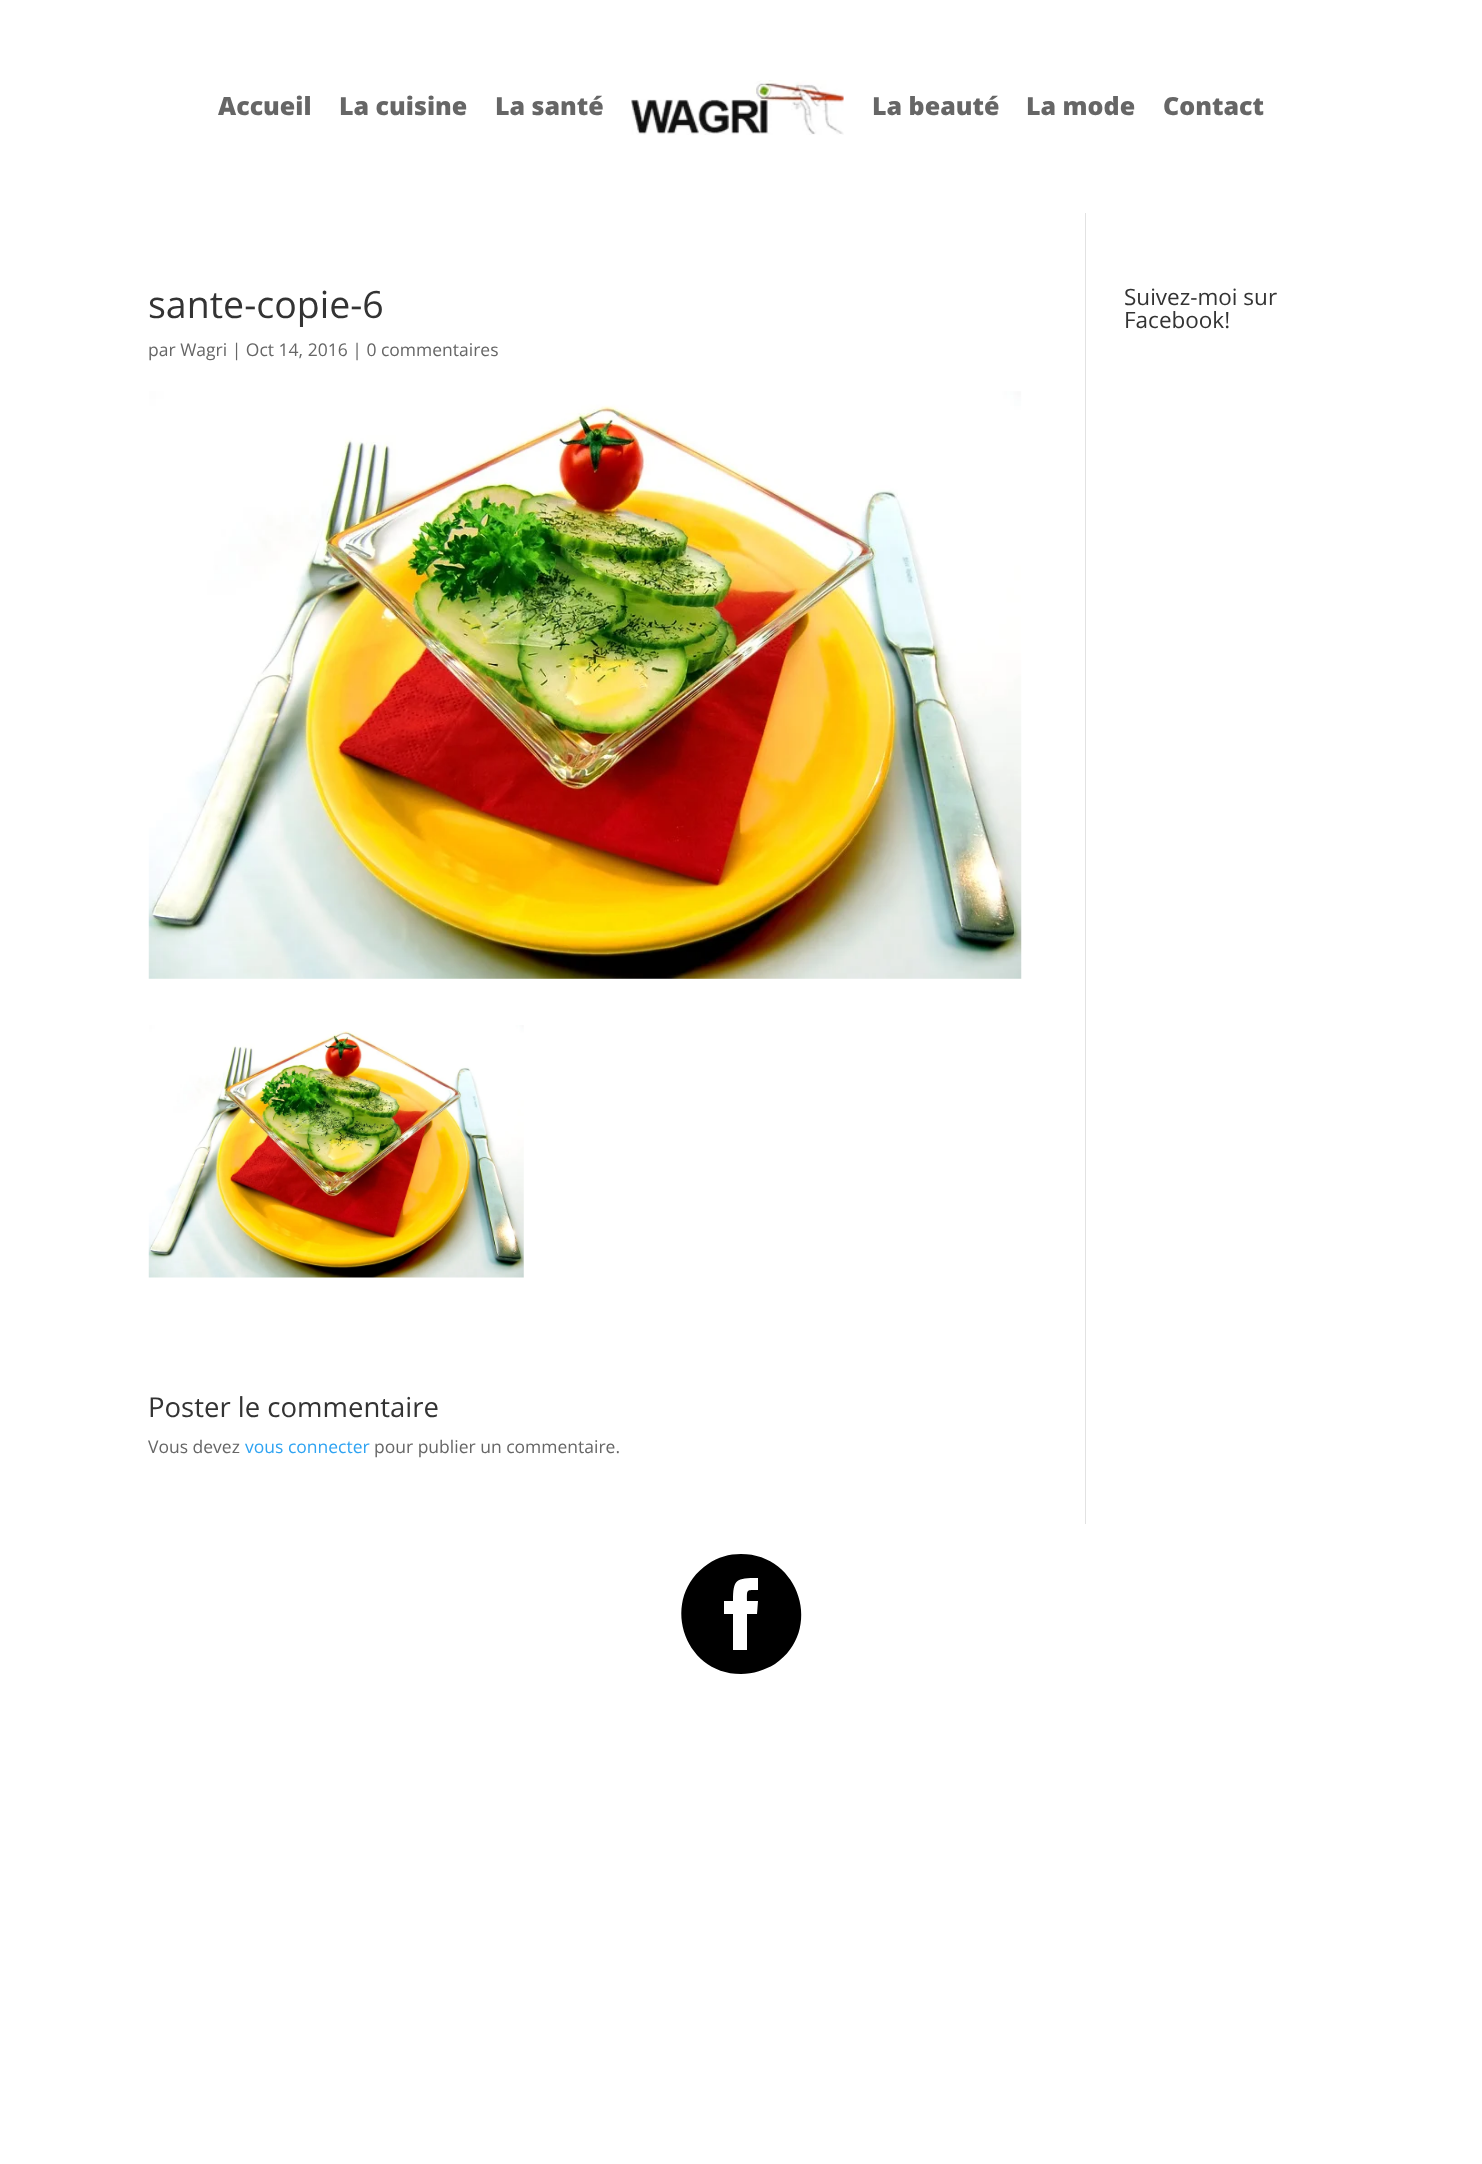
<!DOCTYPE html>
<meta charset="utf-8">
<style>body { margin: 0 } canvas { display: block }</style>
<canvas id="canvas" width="1482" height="2164"></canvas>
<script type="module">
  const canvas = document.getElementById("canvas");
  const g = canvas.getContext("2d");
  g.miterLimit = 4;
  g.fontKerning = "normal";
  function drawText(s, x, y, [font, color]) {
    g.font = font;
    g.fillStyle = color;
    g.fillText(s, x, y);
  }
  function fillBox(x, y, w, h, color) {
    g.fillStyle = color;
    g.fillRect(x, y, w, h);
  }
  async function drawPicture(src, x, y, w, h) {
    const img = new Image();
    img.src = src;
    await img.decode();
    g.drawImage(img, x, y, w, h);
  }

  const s1 = ["800 25px Open Sans", "#666666"];
  const s2 = ["37.5px Open Sans", "#333333"];
  const s3 = ["17.5px Open Sans", "#666666"];
  const s4 = ["27.5px Open Sans", "#333333"];
  const s5 = ["17.5px Open Sans", "#2EA3F2"];
  const s6 = ["22.5px Open Sans", "#333333"];

  fillBox(0, 0, 1482, 2164, "#FFFFFF");
  drawText("Accueil", 218, 115, s1);
  drawText("La cuisine", 339, 115, s1);
  drawText("La santé", 495, 115, s1);
  await drawPicture("pic1.png", 631, 80, 213, 55);
  drawText("La beauté", 872, 115, s1);
  drawText("La mode", 1026, 115, s1);
  drawText("Contact", 1163, 115, s1);
  fillBox(1085, 213, 1, 1311, "#E2E2E2");
  drawText("sante-copie-6", 148, 318, s2);
  drawText("par Wagri | Oct 14, 2016 | 0 commentaires", 148, 356, s3);
  await drawPicture("pic2.png", 148, 391, 874, 588);
  await drawPicture("pic3.png", 148, 1025, 376, 253);
  drawText("Poster le commentaire", 148, 1417, s4);
  drawText("Vous devez", 148, 1453, s3);
  drawText("vous connecter", 245, 1453, s5);
  drawText("pour publier un commentaire.", 374, 1453, s3);
  drawText("Suivez-moi sur", 1124, 305, s6);
  drawText("Facebook!", 1124, 328, s6);
  g.fillStyle = "#000000";
  g.beginPath();
  g.moveTo(741, 1554);
  g.bezierCurveTo(729, 1554, 718, 1557, 708, 1564);
  g.bezierCurveTo(659, 1597, 682, 1674, 741, 1674);
  g.bezierCurveTo(753, 1674, 765, 1670, 775, 1664);
  g.bezierCurveTo(824, 1631, 800, 1554, 741, 1554);
  g.closePath();
  g.moveTo(757, 1614);
  g.lineTo(747, 1614);
  g.lineTo(747, 1650);
  g.lineTo(733, 1650);
  g.lineTo(733, 1614);
  g.lineTo(724, 1614);
  g.lineTo(724, 1601);
  g.lineTo(733, 1601);
  g.bezierCurveTo(733, 1579, 736, 1578, 758, 1578);
  g.lineTo(758, 1590);
  g.bezierCurveTo(746, 1590, 747, 1589, 747, 1601);
  g.lineTo(758, 1601);
  g.closePath();
  g.fill();
</script>
